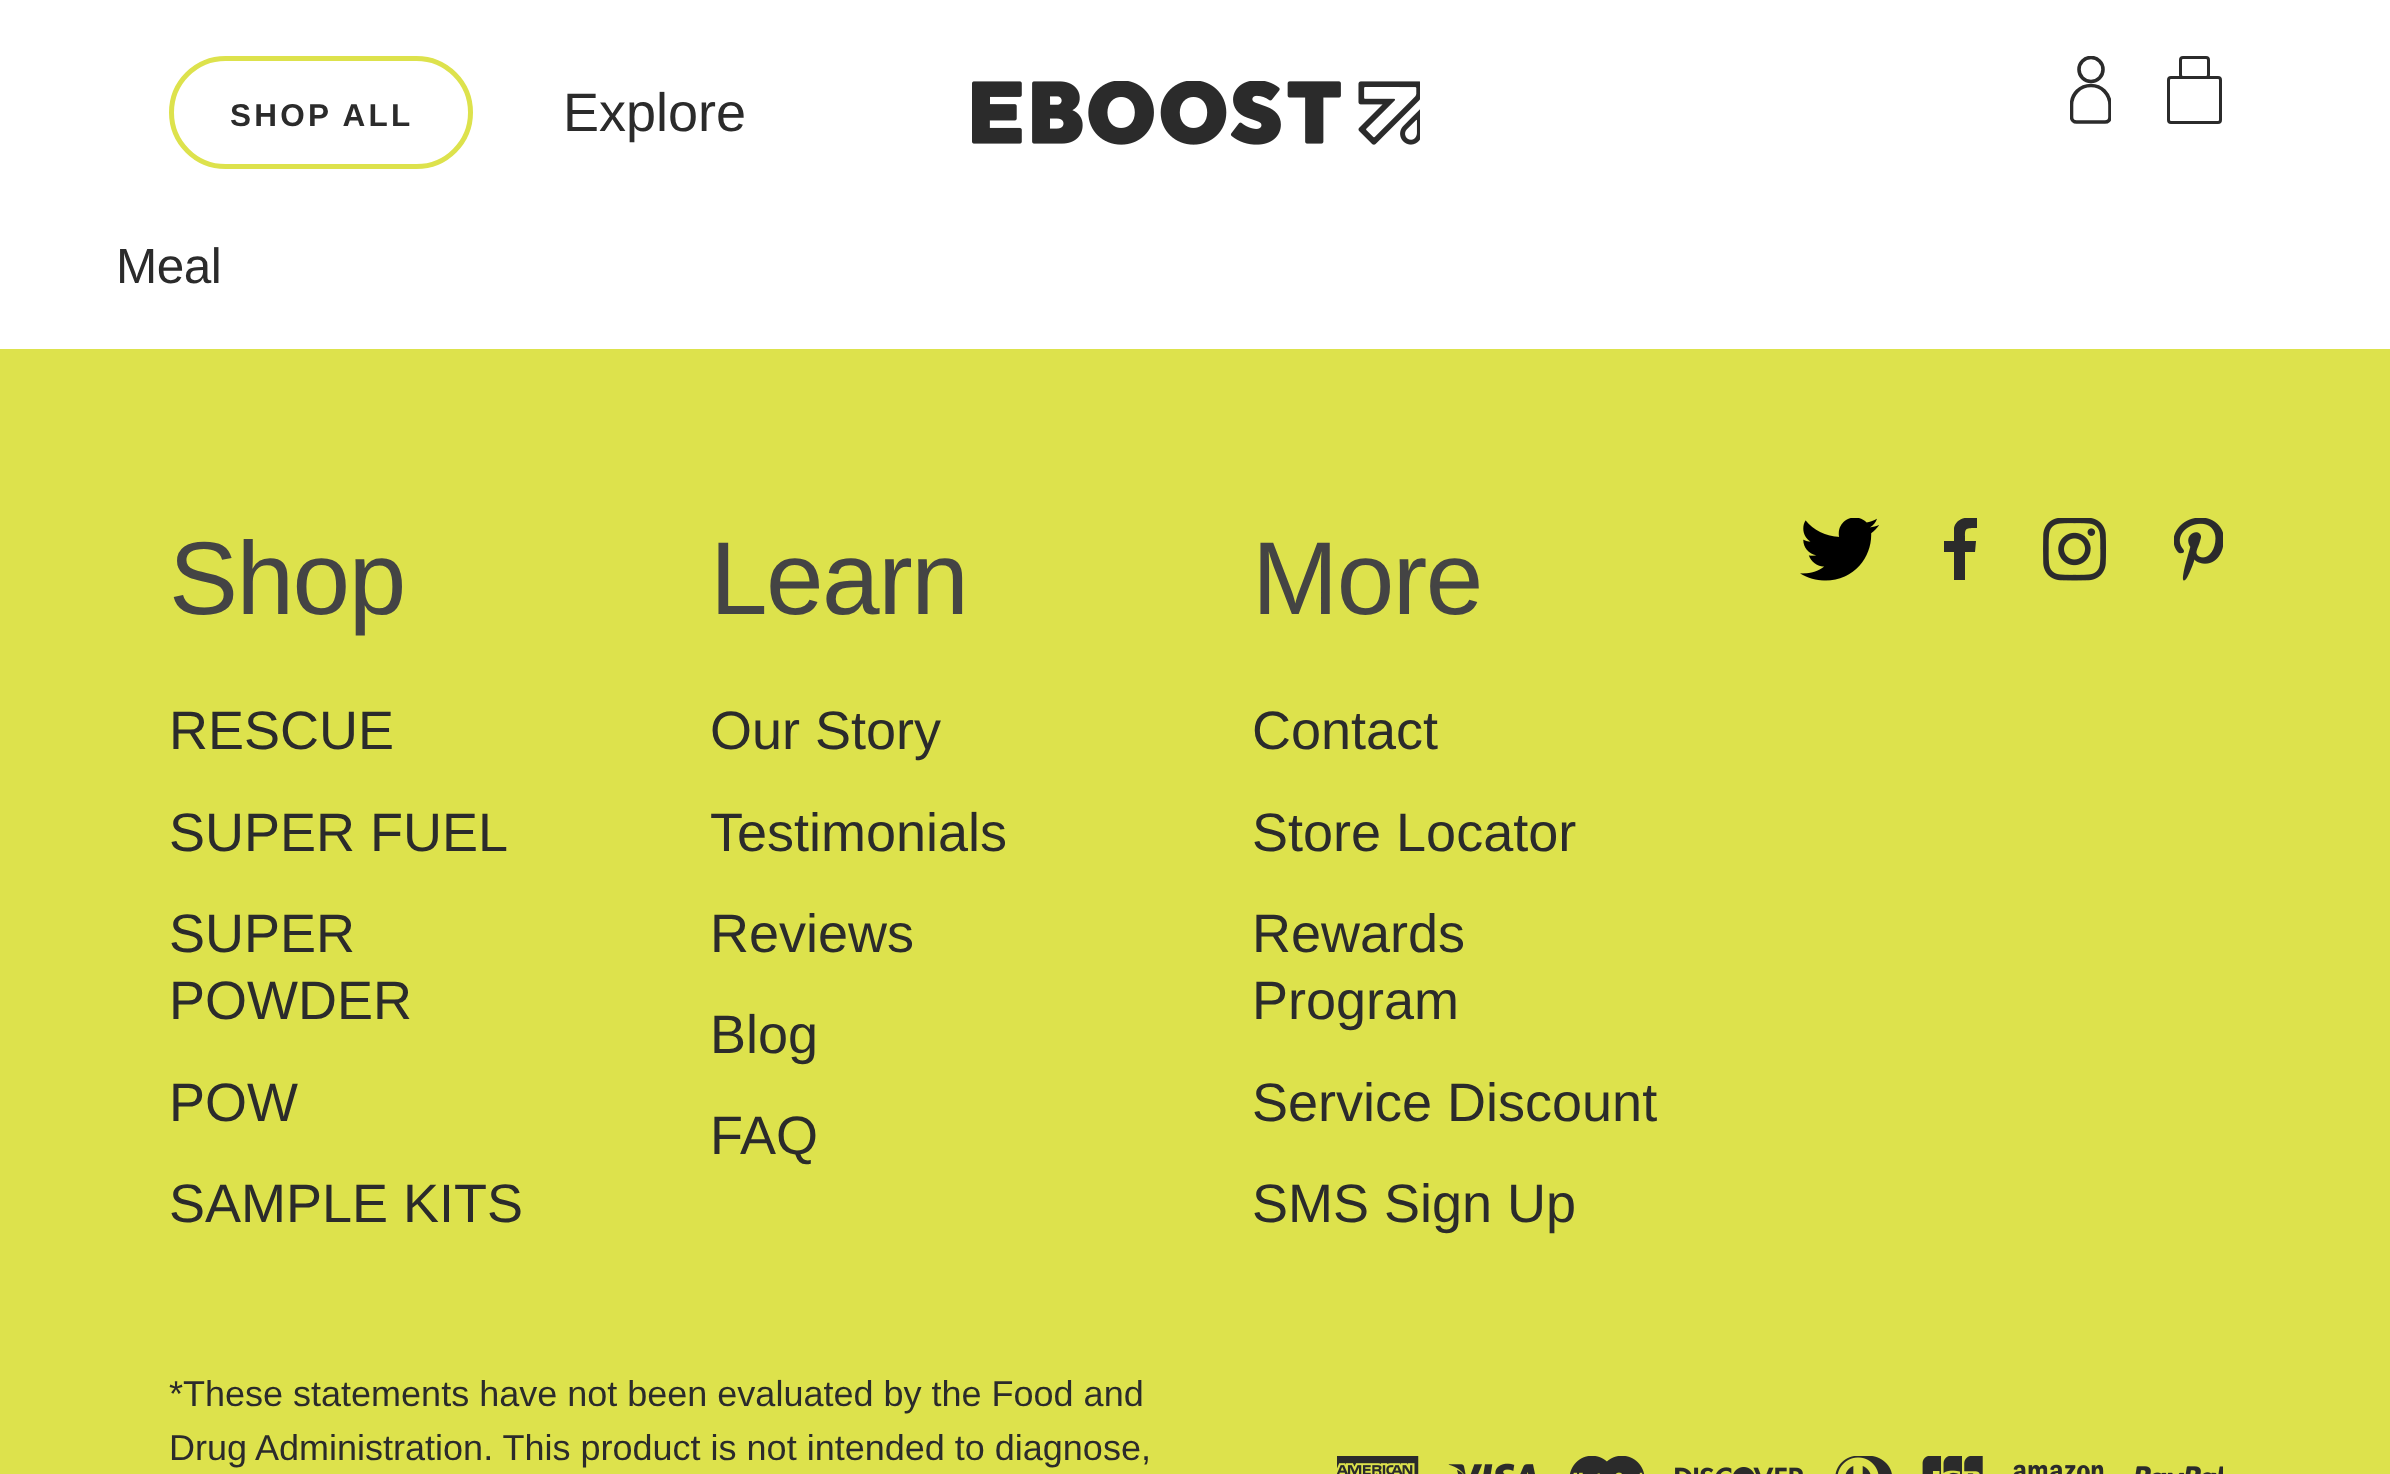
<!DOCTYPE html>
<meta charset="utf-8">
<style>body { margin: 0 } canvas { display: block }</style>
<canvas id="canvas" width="2390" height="1474"></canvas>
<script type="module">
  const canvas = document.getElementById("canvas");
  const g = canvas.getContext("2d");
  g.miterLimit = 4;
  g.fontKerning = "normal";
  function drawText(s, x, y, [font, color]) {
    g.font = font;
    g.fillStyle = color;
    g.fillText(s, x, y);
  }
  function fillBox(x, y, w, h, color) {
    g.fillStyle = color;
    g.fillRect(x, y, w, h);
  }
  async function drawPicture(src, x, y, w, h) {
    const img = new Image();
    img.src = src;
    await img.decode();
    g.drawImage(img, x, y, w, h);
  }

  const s1 = ["bold 31.5px Liberation Sans", "#2B2B2B"];
  const s2 = ["54px Liberation Sans", "#2B2B2B"];
  const s3 = ["49.5px Liberation Sans", "#2B2B2B"];
  const s4 = ["103.5px Liberation Sans", "#444444"];
  const s5 = ["36px Liberation Sans", "#2B2B2B"];

  fillBox(0, 0, 2390, 1474, "#FFFFFF");
  g.beginPath();
  g.roundRect(171.5, 58.5, 299, 108, 54);
  g.strokeStyle = "#DDE24C";
  g.lineWidth = 5;
  g.stroke();
  g.letterSpacing = "3.25px";
  drawText("SHOP ALL", 230, 126, s1);
  g.letterSpacing = "0px";
  drawText("Explore", 563, 131, s2);
  await drawPicture("pic1.png", 972, 81, 448, 64);
  g.save();
  g.beginPath();
  g.rect(2070, 56, 41, 68);
  g.clip();
  g.beginPath();
  g.arc(2091, 69.5, 12, 0, Math.PI * 2);
  g.strokeStyle = "#2B2B2B";
  g.lineWidth = 3.6;
  g.stroke();
  g.beginPath();
  g.moveTo(2091, 85.5);
  g.bezierCurveTo(2101.5, 85.5, 2110, 94, 2110, 105);
  g.lineTo(2110, 117);
  g.bezierCurveTo(2110, 120, 2108, 122, 2105, 122);
  g.lineTo(2076.5, 122);
  g.bezierCurveTo(2074, 122, 2071.5, 120, 2071.5, 117);
  g.lineTo(2071.5, 105);
  g.bezierCurveTo(2071.5, 94, 2080, 85.5, 2091, 85.5);
  g.closePath();
  g.stroke();
  g.restore();
  g.beginPath();
  g.roundRect(2168.5, 77.5, 52, 45, 2.5);
  g.strokeStyle = "#2B2B2B";
  g.lineWidth = 3;
  g.stroke();
  g.beginPath();
  g.roundRect(2180.5, 57.5, 28, 20, 2.5);
  g.stroke();
  g.letterSpacing = "-0.5px";
  drawText("Meal", 116, 283, s3);
  fillBox(0, 349, 2390, 1125, "#DDE24C");
  g.letterSpacing = "-1.5px";
  drawText("Shop", 169, 614, s4);
  g.letterSpacing = "0px";
  drawText("RESCUE", 169, 749, s2);
  drawText("SUPER FUEL", 169, 851, s2);
  drawText("SUPER", 169, 952, s2);
  drawText("POWDER", 169, 1019, s2);
  drawText("POW", 169, 1121, s2);
  drawText("SAMPLE KITS", 169, 1222, s2);
  g.letterSpacing = "-1.5px";
  drawText("Learn", 710, 614, s4);
  g.letterSpacing = "0px";
  drawText("Our Story", 710, 749, s2);
  drawText("Testimonials", 710, 851, s2);
  drawText("Reviews", 710, 952, s2);
  drawText("Blog", 710, 1053, s2);
  drawText("FAQ", 710, 1154, s2);
  g.letterSpacing = "-1.5px";
  drawText("More", 1252, 614, s4);
  g.letterSpacing = "0px";
  drawText("Contact", 1252, 749, s2);
  drawText("Store Locator", 1252, 851, s2);
  drawText("Rewards", 1252, 952, s2);
  drawText("Program", 1252, 1019, s2);
  drawText("Service Discount", 1252, 1121, s2);
  drawText("SMS Sign Up", 1252, 1222, s2);
  await drawPicture("pic2.png", 1800, 518, 79, 63);
  g.save();
  g.beginPath();
  g.rect(1944, 518, 34, 63);
  g.clip();
  g.beginPath();
  g.moveTo(1954, 580);
  g.lineTo(1954, 552);
  g.lineTo(1944, 552);
  g.lineTo(1944, 541);
  g.lineTo(1954, 541);
  g.lineTo(1954, 528);
  g.bezierCurveTo(1956, 518, 1968, 516, 1977, 518);
  g.lineTo(1977, 528);
  g.bezierCurveTo(1964, 528, 1965, 528, 1965, 541);
  g.lineTo(1976, 541);
  g.lineTo(1975, 552);
  g.lineTo(1965, 552);
  g.lineTo(1965, 580);
  g.closePath();
  g.fill();
  g.restore();
  await drawPicture("pic3.png", 2043, 518, 63, 63);
  await drawPicture("pic4.png", 2174, 518, 49, 63);
  drawText("*These statements have not been evaluated by the Food and", 169, 1406, s5);
  drawText("Drug Administration. This product is not intended to diagnose,", 169, 1460, s5);
  await drawPicture("pic5.png", 1337, 1456, 886, 18);
</script>
